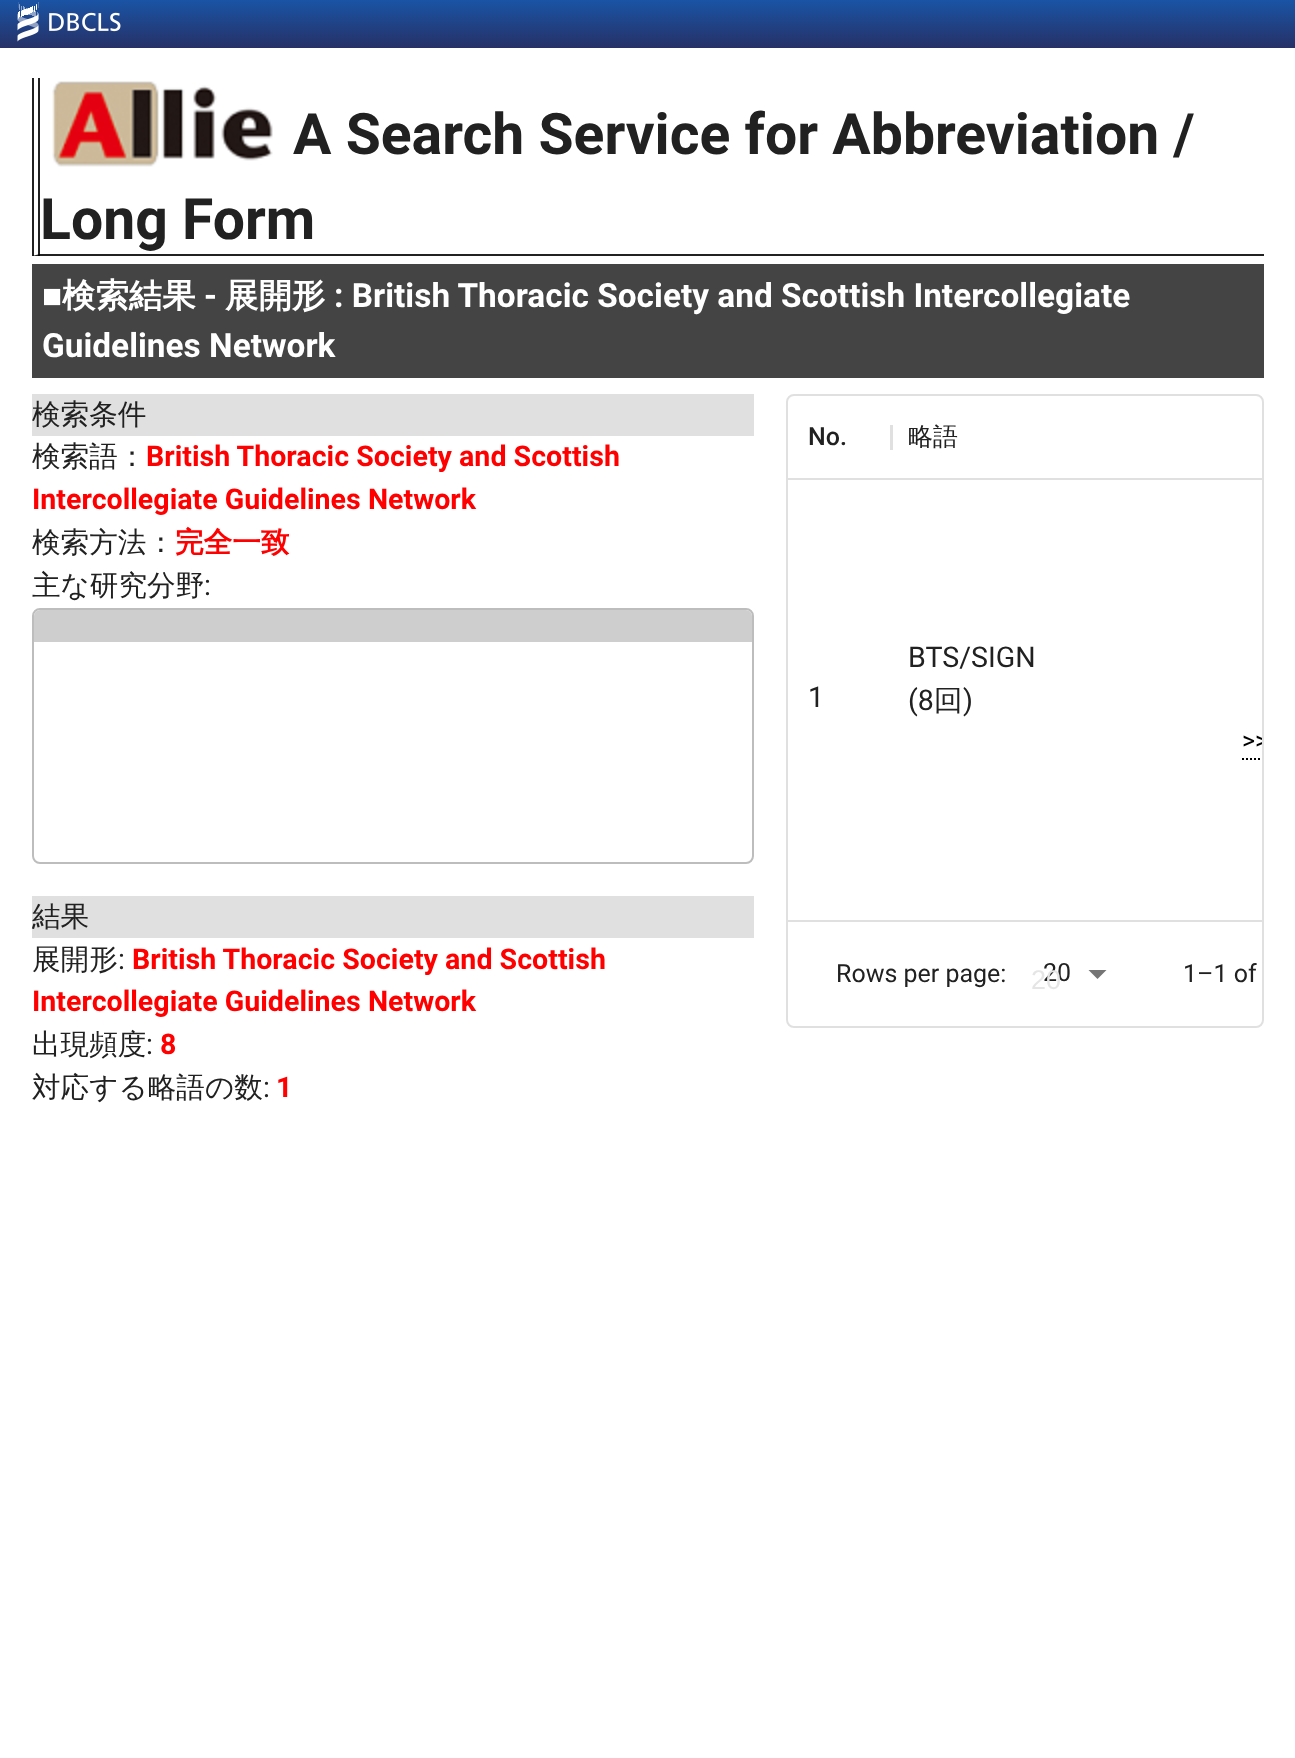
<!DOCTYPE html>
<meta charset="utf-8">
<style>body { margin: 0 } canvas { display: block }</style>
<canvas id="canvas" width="1295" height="1758"></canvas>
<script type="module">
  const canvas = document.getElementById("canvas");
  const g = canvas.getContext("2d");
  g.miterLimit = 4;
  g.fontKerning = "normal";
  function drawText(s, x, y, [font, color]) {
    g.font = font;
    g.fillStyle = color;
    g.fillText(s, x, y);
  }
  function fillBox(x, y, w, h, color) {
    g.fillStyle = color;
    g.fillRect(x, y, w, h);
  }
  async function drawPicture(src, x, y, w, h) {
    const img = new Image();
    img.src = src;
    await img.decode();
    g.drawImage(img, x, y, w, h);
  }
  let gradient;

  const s1 = ["bold 57.1px Roboto", "#212121"];
  const s2 = ["bold 33.4px Liberation Sans", "#FFFFFF"];
  const s3 = ["bold 33.4px WenQuanYi Zen Hei", "#FFFFFF"];
  const s4 = ["bold 33.4px Roboto", "#FFFFFF"];
  const s5 = ["500 28.6px WenQuanYi Zen Hei", "#212121"];
  const s6 = ["bold 28.6px Roboto", "#FF0000"];
  const s7 = ["bold 28.6px WenQuanYi Zen Hei", "#FF0000"];
  const s8 = ["28.6px Roboto", "#212121"];
  const s9 = ["500 25px Roboto", "#212121"];
  const s10 = ["500 25px WenQuanYi Zen Hei", "#212121"];
  const s11 = ["25px Roboto", "#000000"];
  const s12 = ["25px Roboto", "#212121"];
  const s13 = ["27px Liberation Sans", "#E5E5E5"];

  fillBox(0, 0, 1295, 1758, "#FFFFFF");
  gradient = g.createLinearGradient(648, 0, 648, 48);
  gradient.addColorStop(0, "#1A54A5");
  gradient.addColorStop(1, "#263167");
  g.fillStyle = gradient;
  g.fillRect(0, 0, 1295, 48);
  await drawPicture("pic1.png", 17, 2, 104, 40);
  g.fillStyle = "#212121";
  g.beginPath();
  g.moveTo(1264, 256);
  g.lineTo(32, 256);
  g.lineTo(40, 254);
  g.lineTo(1264, 254);
  g.closePath();
  g.fill();
  fillBox(32, 78, 2, 178, "rgba(0, 0, 0, 0.87)");
  fillBox(38, 78, 2, 178, "rgba(0, 0, 0, 0.87)");
  await drawPicture("pic2.png", 52, 81, 221, 86);
  drawText("A Search Service for Abbreviation /", 293, 154, s1);
  drawText("Long Form", 40, 239, s1);
  fillBox(32, 264, 1232, 114, "#444444");
  drawText("■", 42, 307, s2);
  drawText("検索結果", 62, 307, s3);
  drawText("-", 204, 307, s4);
  drawText("展開形", 225, 307, s3);
  drawText(": British Thoracic Society and Scottish Intercollegiate", 334, 307, s4);
  drawText("Guidelines Network", 42, 357, s4);
  fillBox(32, 394, 722, 42, "#E0E0E0");
  drawText("検索条件", 32, 424, s5);
  drawText("検索語：", 32, 466, s5);
  drawText("British Thoracic Society and Scottish", 146, 466, s6);
  drawText("Intercollegiate Guidelines Network", 32, 509, s6);
  drawText("検索方法：", 32, 552, s5);
  drawText("完全一致", 175, 552, s7);
  drawText("主な研究分野", 32, 595, s5);
  drawText(":", 204, 595, s8);
  g.beginPath();
  g.roundRect(33, 609, 720, 254, 7);
  g.strokeStyle = "#BDBDBD";
  g.lineWidth = 2;
  g.stroke();
  g.fillStyle = "#CECECE";
  g.beginPath();
  g.roundRect(34, 610, 718, 32, [6, 6, 0, 0]);
  g.fill();
  fillBox(32, 896, 722, 42, "#E0E0E0");
  drawText("結果", 32, 926, s5);
  drawText("展開形", 32, 969, s5);
  drawText(":", 118, 969, s8);
  drawText("British Thoracic Society and Scottish", 132, 969, s6);
  drawText("Intercollegiate Guidelines Network", 32, 1011, s6);
  drawText("出現頻度", 32, 1054, s5);
  drawText(":", 146, 1054, s8);
  drawText("8", 160, 1054, s6);
  drawText("対応する略語の数", 32, 1097, s5);
  drawText(":", 263, 1097, s8);
  drawText("1", 276, 1097, s6);
  g.beginPath();
  g.roundRect(787, 395, 476, 632, 7);
  g.strokeStyle = "#E0E0E0";
  g.stroke();
  fillBox(788, 478, 474, 2, "#E0E0E0");
  drawText("No.", 808, 445, s9);
  fillBox(890, 425, 3, 25, "#E0E0E0");
  drawText("略語", 908, 445, s10);
  drawText("1", 808, 707, s8);
  drawText("BTS/SIGN", 908, 667, s8);
  drawText("(8", 908, 710, s8);
  drawText("回", 934, 710, s5);
  drawText(")", 963, 710, s8);
  g.save();
  g.beginPath();
  g.rect(788, 480, 474, 440);
  g.clip();
  g.beginPath();
  g.moveTo(1242, 759);
  g.lineTo(1268, 759);
  g.strokeStyle = "#000000";
  g.setLineDash([2, 2]);
  g.stroke();
  drawText(">>", 1242, 749, s11);
  g.restore();
  fillBox(788, 920, 474, 2, "#E0E0E0");
  drawText("Rows per page:", 836, 982, s12);
  drawText("20", 1043, 981, s12);
  drawText("20", 1031, 989, s13);
  g.fillStyle = "#757575";
  g.beginPath();
  g.moveTo(1088.5, 970);
  g.lineTo(1097.5, 979);
  g.lineTo(1106.5, 970);
  g.closePath();
  g.fill();
  drawText("1–1 of", 1183, 982, s12);
</script>
